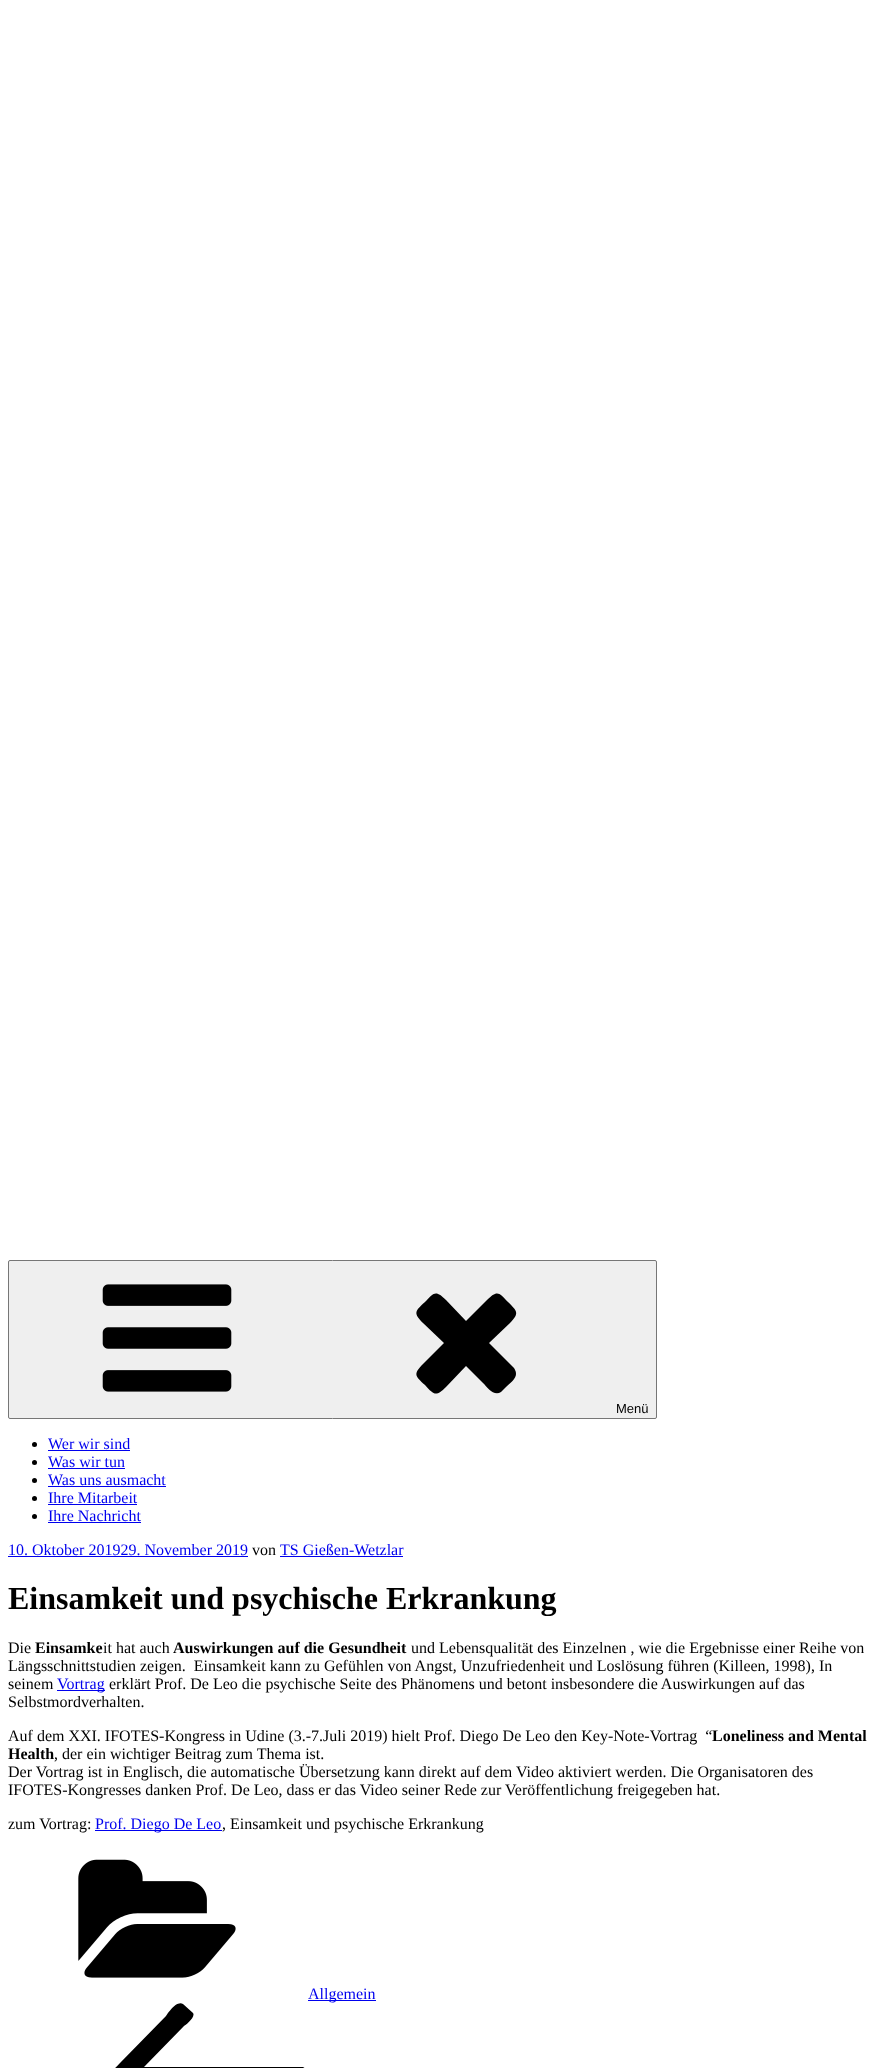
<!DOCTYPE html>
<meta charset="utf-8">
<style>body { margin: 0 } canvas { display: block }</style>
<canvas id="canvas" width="876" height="2068"></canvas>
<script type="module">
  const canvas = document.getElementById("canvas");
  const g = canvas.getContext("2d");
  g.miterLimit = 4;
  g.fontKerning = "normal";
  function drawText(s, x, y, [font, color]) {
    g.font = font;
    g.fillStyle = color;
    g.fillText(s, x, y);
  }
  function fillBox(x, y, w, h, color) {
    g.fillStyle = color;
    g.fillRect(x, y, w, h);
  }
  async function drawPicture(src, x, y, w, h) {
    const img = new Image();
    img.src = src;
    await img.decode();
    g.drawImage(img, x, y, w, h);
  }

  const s1 = ["13px Liberation Sans", "#000000"];
  const s2 = ["16px Liberation Serif", "#0000EE"];
  const s3 = ["16px Liberation Serif", "#000000"];
  const s4 = ["bold 32px Liberation Serif", "#000000"];
  const s5 = ["bold 16px Liberation Serif", "#000000"];

  fillBox(0, 0, 876, 2068, "#FFFFFF");
  g.fillStyle = "#EFEFEF";
  g.beginPath();
  g.roundRect(8.5, 1260.5, 648, 158, 1.5);
  g.fill();
  g.strokeStyle = "#767676";
  g.stroke();
  await drawPicture("pic1.png", 102, 1284, 130, 108);
  g.fillStyle = "#000000";
  g.beginPath();
  g.moveTo(516, 1374);
  g.bezierCurveTo(516, 1379, 510, 1383, 506, 1387);
  g.lineTo(501, 1392);
  g.bezierCurveTo(494, 1397, 487, 1387, 483, 1383);
  g.lineTo(466, 1366);
  g.lineTo(446, 1387);
  g.bezierCurveTo(436, 1397, 434, 1395, 425, 1385);
  g.bezierCurveTo(415, 1376, 413, 1374, 423, 1364);
  g.lineTo(444, 1343);
  g.lineTo(423, 1323);
  g.bezierCurveTo(413, 1313, 415, 1311, 425, 1302);
  g.bezierCurveTo(434, 1292, 436, 1290, 446, 1300);
  g.lineTo(466, 1321);
  g.lineTo(487, 1300);
  g.bezierCurveTo(497, 1290, 499, 1292, 508, 1302);
  g.bezierCurveTo(517, 1311, 520, 1313, 510, 1323);
  g.lineTo(489, 1343);
  g.lineTo(514, 1368);
  g.bezierCurveTo(515, 1370, 516, 1371, 516, 1374);
  g.closePath();
  g.fill();
  drawText("Menü", 616, 1413, s1);
  g.beginPath();
  g.arc(34.5, 1444.5, 2.5, 0, Math.PI * 2);
  g.fill();
  drawText("Wer wir sind", 48, 1449, s2);
  fillBox(48, 1450, 82, 1, "#0000EE");
  g.fillStyle = "#000000";
  g.beginPath();
  g.arc(34.5, 1462.5, 2.5, 0, Math.PI * 2);
  g.fill();
  drawText("Was wir tun", 48, 1467, s2);
  fillBox(48, 1468, 77, 1, "#0000EE");
  g.fillStyle = "#000000";
  g.beginPath();
  g.arc(34.5, 1480.5, 2.5, 0, Math.PI * 2);
  g.fill();
  drawText("Was uns ausmacht", 48, 1485, s2);
  fillBox(48, 1486, 118, 1, "#0000EE");
  g.fillStyle = "#000000";
  g.beginPath();
  g.arc(34.5, 1498.5, 2.5, 0, Math.PI * 2);
  g.fill();
  drawText("Ihre Mitarbeit", 48, 1503, s2);
  fillBox(48, 1504, 89, 1, "#0000EE");
  g.fillStyle = "#000000";
  g.beginPath();
  g.arc(34.5, 1516.5, 2.5, 0, Math.PI * 2);
  g.fill();
  drawText("Ihre Nachricht", 48, 1521, s2);
  fillBox(48, 1522, 93, 1, "#0000EE");
  drawText("10. Oktober 201929. November 2019", 8, 1555, s2);
  fillBox(8, 1556, 240, 1, "#0000EE");
  drawText("von", 252, 1555, s3);
  fillBox(280, 1556, 123, 1, "#0000EE");
  drawText("TS Gießen-Wetzlar", 280, 1555, s2);
  drawText("Einsamkeit und psychische Erkrankung", 8, 1609, s4);
  drawText("Die", 8, 1653, s3);
  drawText("Einsamke", 35, 1653, s5);
  drawText("it hat auch", 103, 1653, s3);
  drawText("Auswirkungen auf die Gesundheit", 173, 1653, s5);
  drawText("und Lebensqualität des Einzelnen , wie die Ergebnisse einer Reihe von", 411, 1653, s3);
  drawText("Längsschnittstudien zeigen.  Einsamkeit kann zu Gefühlen von Angst, Unzufriedenheit und Loslösung führen (Killeen, 1998), In", 8, 1671, s3);
  drawText("seinem", 8, 1689, s3);
  fillBox(57, 1690, 48, 1, "#0000EE");
  drawText("Vortrag", 57, 1689, s2);
  drawText("erklärt Prof. De Leo die psychische Seite des Phänomens und betont insbesondere die Auswirkungen auf das", 109, 1689, s3);
  drawText("Selbstmordverhalten.", 8, 1707, s3);
  drawText("Auf dem XXI. IFOTES-Kongress in Udine (3.-7.Juli 2019) hielt Prof. Diego De Leo den Key-Note-Vortrag  “", 8, 1741, s3);
  drawText("Loneliness and Mental", 712, 1741, s5);
  drawText("Health", 8, 1759, s5);
  drawText(", der ein wichtiger Beitrag zum Thema ist.", 54, 1759, s3);
  drawText("Der Vortrag ist in Englisch, die automatische Übersetzung kann direkt auf dem Video aktiviert werden. Die Organisatoren des", 8, 1777, s3);
  drawText("IFOTES-Kongresses danken Prof. De Leo, dass er das Video seiner Rede zur Veröffentlichung freigegeben hat.", 8, 1795, s3);
  drawText("zum Vortrag:", 8, 1829, s3);
  fillBox(95, 1830, 127, 1, "#0000EE");
  drawText("Prof. Diego De Leo", 95, 1829, s2);
  drawText(", Einsamkeit und psychische Erkrankung", 222, 1829, s3);
  await drawPicture("pic2.png", 78, 1859, 158, 119);
  fillBox(308, 2000, 68, 1, "#0000EE");
  drawText("Allgemein", 308, 1999, s2);
  g.fillStyle = "#000000";
  g.beginPath();
  g.moveTo(306, 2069);
  g.lineTo(303, 2067);
  g.lineTo(144, 2067);
  g.lineTo(184, 2026);
  g.bezierCurveTo(185, 2026, 196, 2017, 193, 2013);
  g.lineTo(183, 2004);
  g.bezierCurveTo(176, 2000, 167, 2015, 166, 2016);
  g.lineTo(120, 2063);
  g.bezierCurveTo(103, 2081, 103, 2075, 120, 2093);
  g.lineTo(179, 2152);
  g.bezierCurveTo(182, 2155, 187, 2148, 189, 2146);
  g.bezierCurveTo(197, 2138, 191, 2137, 183, 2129);
  g.lineTo(143, 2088);
  g.lineTo(275, 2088);
  g.bezierCurveTo(289, 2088, 297, 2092, 306, 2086);
  g.bezierCurveTo(308, 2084, 308, 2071, 306, 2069);
  g.closePath();
  g.fill();
</script>
